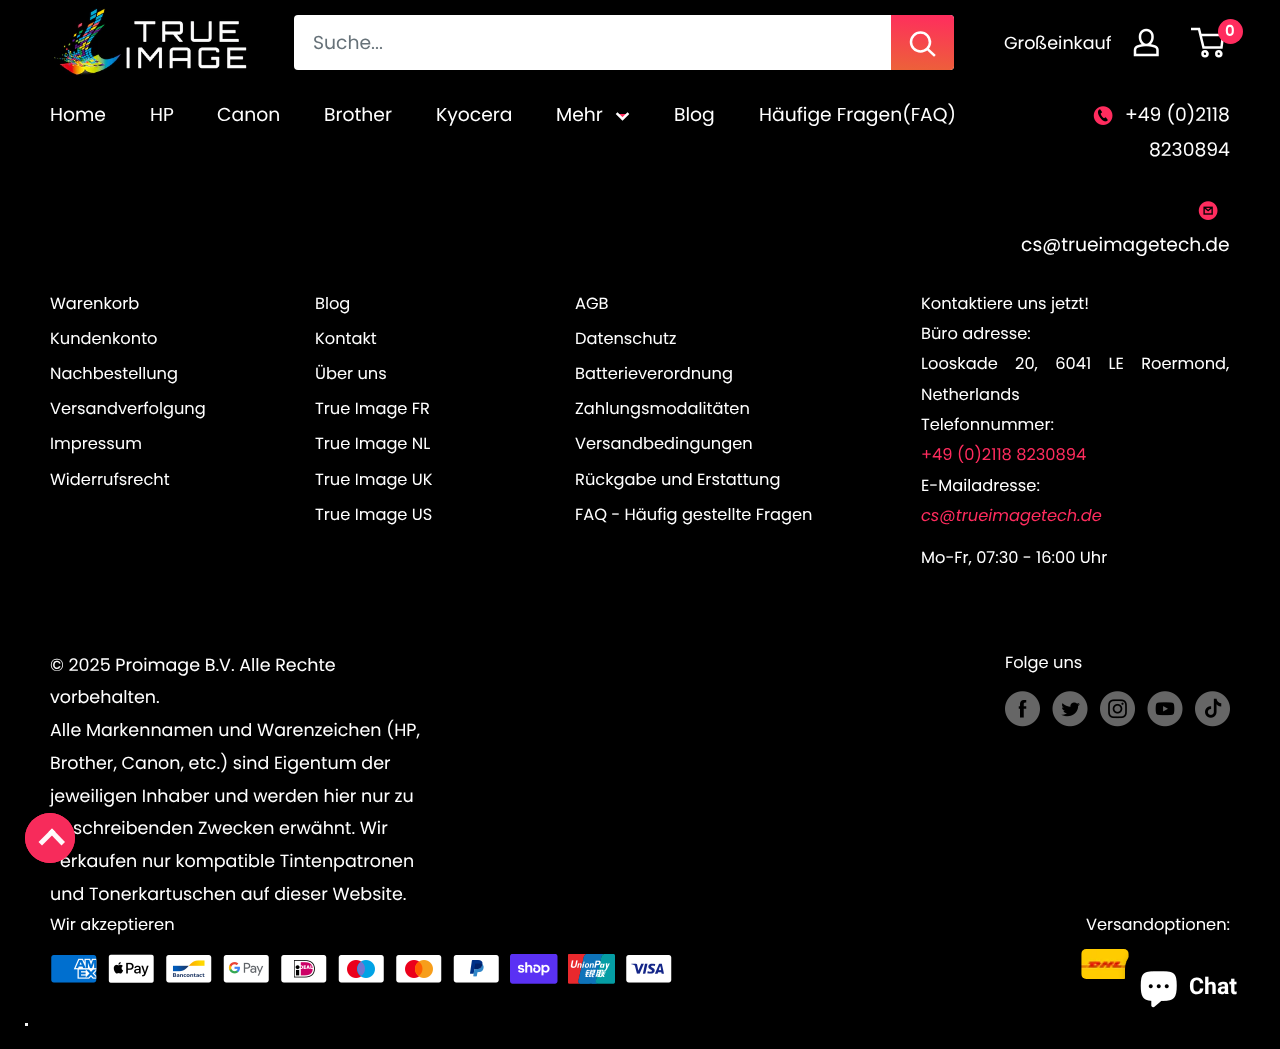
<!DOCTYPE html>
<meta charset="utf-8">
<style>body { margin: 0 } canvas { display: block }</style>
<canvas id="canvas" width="1280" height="1049"></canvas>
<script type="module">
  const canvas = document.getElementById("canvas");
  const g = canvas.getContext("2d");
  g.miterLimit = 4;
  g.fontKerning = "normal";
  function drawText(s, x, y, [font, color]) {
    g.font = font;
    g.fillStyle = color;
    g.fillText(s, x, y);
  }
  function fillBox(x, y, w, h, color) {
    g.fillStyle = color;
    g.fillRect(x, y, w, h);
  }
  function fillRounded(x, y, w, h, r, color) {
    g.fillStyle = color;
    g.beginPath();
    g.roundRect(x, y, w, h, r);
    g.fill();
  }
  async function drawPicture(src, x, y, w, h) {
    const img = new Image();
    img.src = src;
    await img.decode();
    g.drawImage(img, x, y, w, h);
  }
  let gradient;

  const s1 = ["18.75px Poppins", "#677279"];
  const s2 = ["17.5px Poppins", "#FFFFFF"];
  const s3 = ["600 15px Poppins", "#FFFFFF"];
  const s4 = ["18.75px Poppins", "#FFFFFF"];
  const s5 = ["16.25px Poppins", "#FFFFFF"];
  const s6 = ["16.25px Poppins", "#FF2C5E"];
  const s7 = ["italic 16.25px Poppins", "#FF2C5E"];
  const s8 = ["bold 23px Roboto", "#FFFFFF"];

  fillBox(0, 0, 1280, 1049, "#000000");
  await drawPicture("pic1.png", 54, 8, 193, 68);
  fillRounded(294, 15, 660, 55, 4, "#FFFFFF");
  drawText("Suche...", 313, 49, s1);
  gradient = g.createLinearGradient(920, 73, 925, 13);
  gradient.addColorStop(0, "#EC6338");
  gradient.addColorStop(1, "#FF2C5E");
  g.fillStyle = gradient;
  g.beginPath();
  g.roundRect(891, 15, 63, 55, [0, 4, 4, 0]);
  g.fill();
  g.beginPath();
  g.moveTo(934, 55);
  g.lineTo(927.5, 49);
  g.strokeStyle = "#FFFFFF";
  g.lineWidth = 2.5;
  g.lineCap = "square";
  g.stroke();
  g.beginPath();
  g.arc(920.5, 42, 9.5, 0, Math.PI * 2);
  g.stroke();
  drawText("Großeinkauf", 1004, 49, s2);
  await drawPicture("pic2.png", 1133, 28, 26, 29);
  g.beginPath();
  g.arc(1205, 53.8, 2.5, 0, Math.PI * 2);
  g.stroke();
  g.beginPath();
  g.arc(1218.8, 53.8, 2.5, 0, Math.PI * 2);
  g.stroke();
  g.beginPath();
  g.moveTo(1200.5, 35);
  g.lineTo(1223, 35);
  g.lineTo(1221.5, 47.5);
  g.lineTo(1203.5, 47.5);
  g.lineTo(1199, 29);
  g.lineTo(1191, 29);
  g.lineCap = "butt";
  g.stroke();
  g.fillStyle = "#FF2C5E";
  g.beginPath();
  g.arc(1230.5, 31.5, 12.5, 0, Math.PI * 2);
  g.fill();
  drawText("0", 1225, 36, s3);
  drawText("Home", 50, 121, s4);
  drawText("HP", 150, 121, s4);
  drawText("Canon", 217, 121, s4);
  drawText("Brother", 324, 121, s4);
  drawText("Kyocera", 436, 121, s4);
  drawText("Mehr", 556, 121, s4);
  g.fillStyle = "#FF2C5E";
  g.beginPath();
  g.moveTo(627.5, 114);
  g.lineTo(622.5, 119);
  g.lineTo(617.5, 114);
  g.fill();
  g.lineCap = "square";
  g.stroke();
  drawText("Blog", 674, 121, s4);
  drawText("Häufige Fragen(FAQ)", 759, 121, s4);
  await drawPicture("pic3.png", 1093, 106, 20, 19);
  drawText("+49 (0)2118", 1125, 121, s4);
  drawText("8230894", 1149, 156, s4);
  await drawPicture("pic4.png", 1198, 201, 20, 19);
  drawText("cs@trueimagetech.de", 1021, 251, s4);
  drawText("Warenkorb", 50, 309, s5);
  drawText("Kundenkonto", 50, 344, s5);
  drawText("Nachbestellung", 50, 379, s5);
  drawText("Versandverfolgung", 50, 414, s5);
  drawText("Impressum", 50, 449, s5);
  drawText("Widerrufsrecht", 50, 485, s5);
  drawText("Blog", 315, 309, s5);
  drawText("Kontakt", 315, 344, s5);
  drawText("Über uns", 315, 379, s5);
  drawText("True Image FR", 315, 414, s5);
  drawText("True Image NL", 315, 449, s5);
  drawText("True Image UK", 315, 485, s5);
  drawText("True Image US", 315, 520, s5);
  drawText("AGB", 575, 309, s5);
  drawText("Datenschutz", 575, 344, s5);
  drawText("Batterieverordnung", 575, 379, s5);
  drawText("Zahlungsmodalitäten", 575, 414, s5);
  drawText("Versandbedingungen", 575, 449, s5);
  drawText("Rückgabe und Erstattung", 575, 485, s5);
  drawText("FAQ - Häufig gestellte Fragen", 575, 520, s5);
  drawText("Kontaktiere uns jetzt!", 921, 309, s5);
  drawText("Büro adresse:", 921, 339, s5);
  g.wordSpacing = "13px";
  drawText("Looskade 20, 6041 LE Roermond,", 921, 369, s5);
  g.wordSpacing = "0px";
  drawText("Netherlands", 921, 400, s5);
  drawText("Telefonnummer:", 921, 430, s5);
  drawText("+49 (0)2118 8230894", 921, 460, s6);
  drawText("E-Mailadresse:", 921, 491, s5);
  drawText("cs@trueimagetech.de", 921, 521, s7);
  drawText("Mo-Fr, 07:30 - 16:00 Uhr", 921, 563, s5);
  drawText("© 2025 Proimage B.V. Alle Rechte", 50, 671, s2);
  drawText("vorbehalten.", 50, 703, s2);
  drawText("Alle Markennamen und Warenzeichen (HP,", 50, 736, s2);
  drawText("Brother, Canon, etc.) sind Eigentum der", 50, 769, s2);
  drawText("jeweiligen Inhaber und werden hier nur zu", 50, 802, s2);
  drawText("schreibenden Zwecken erwähnt. Wir", 73, 834, s2);
  drawText("erkaufen nur kompatible Tintenpatronen", 60, 867, s2);
  drawText("und Tonerkartuschen auf dieser Website.", 50, 900, s2);
  drawText("Folge uns", 1005, 668, s5);
  await drawPicture("pic5.png", 1005, 691, 35, 36);
  await drawPicture("pic6.png", 1052, 691, 36, 36);
  await drawPicture("pic7.png", 1100, 691, 35, 36);
  await drawPicture("pic8.png", 1147, 691, 36, 36);
  await drawPicture("pic9.png", 1195, 691, 35, 36);
  drawText("Wir akzeptieren", 50, 930, s5);
  await drawPicture("pic10.png", 51, 955, 46, 28);
  await drawPicture("pic11.png", 108, 954, 46, 29);
  await drawPicture("pic12.png", 166, 955, 46, 28);
  await drawPicture("pic13.png", 223, 955, 46, 28);
  await drawPicture("pic14.png", 281, 955, 46, 28);
  await drawPicture("pic15.png", 338, 955, 46, 28);
  await drawPicture("pic16.png", 396, 955, 46, 28);
  await drawPicture("pic17.png", 453, 955, 46, 28);
  await drawPicture("pic18.png", 510, 954, 48, 30);
  await drawPicture("pic19.png", 568, 954, 47, 30);
  await drawPicture("pic20.png", 626, 955, 46, 28);
  drawText("Versandoptionen:", 1086, 930, s5);
  await drawPicture("pic21.png", 1081, 949, 48, 30);
  g.fillStyle = "rgba(255, 44, 94, 0.97)";
  g.beginPath();
  g.arc(50, 838, 25, 0, Math.PI * 2);
  g.fill();
  g.beginPath();
  g.arc(50, 838, 24.5, 0, Math.PI * 2);
  g.strokeStyle = "rgba(255, 44, 94, 0.97)";
  g.lineWidth = 1;
  g.stroke();
  g.fillStyle = "rgba(255, 255, 255, 0.97)";
  g.beginPath();
  g.moveTo(38.5, 842);
  g.lineTo(52, 828.5);
  g.lineTo(55.5, 832);
  g.lineTo(42, 845.5);
  g.closePath();
  g.fill();
  g.beginPath();
  g.moveTo(48.5, 832);
  g.lineTo(52, 828.5);
  g.lineTo(65, 842);
  g.lineTo(61.5, 845.5);
  g.closePath();
  g.fill();
  g.fillStyle = "rgba(0, 0, 0, 0.15)";
  g.filter = "blur(3px)";
  g.beginPath();
  g.roundRect(1125, 949, 128, 75, 20);
  g.fill();
  g.filter = "none";
  fillRounded(1125, 949, 128, 75, 20, "#000000");
  await drawPicture("pic22.png", 1140, 971, 37, 37);
  drawText("Chat", 1189, 994, s8);
  fillBox(25, 1023, 3, 3, "#F5F5F5");
</script>
